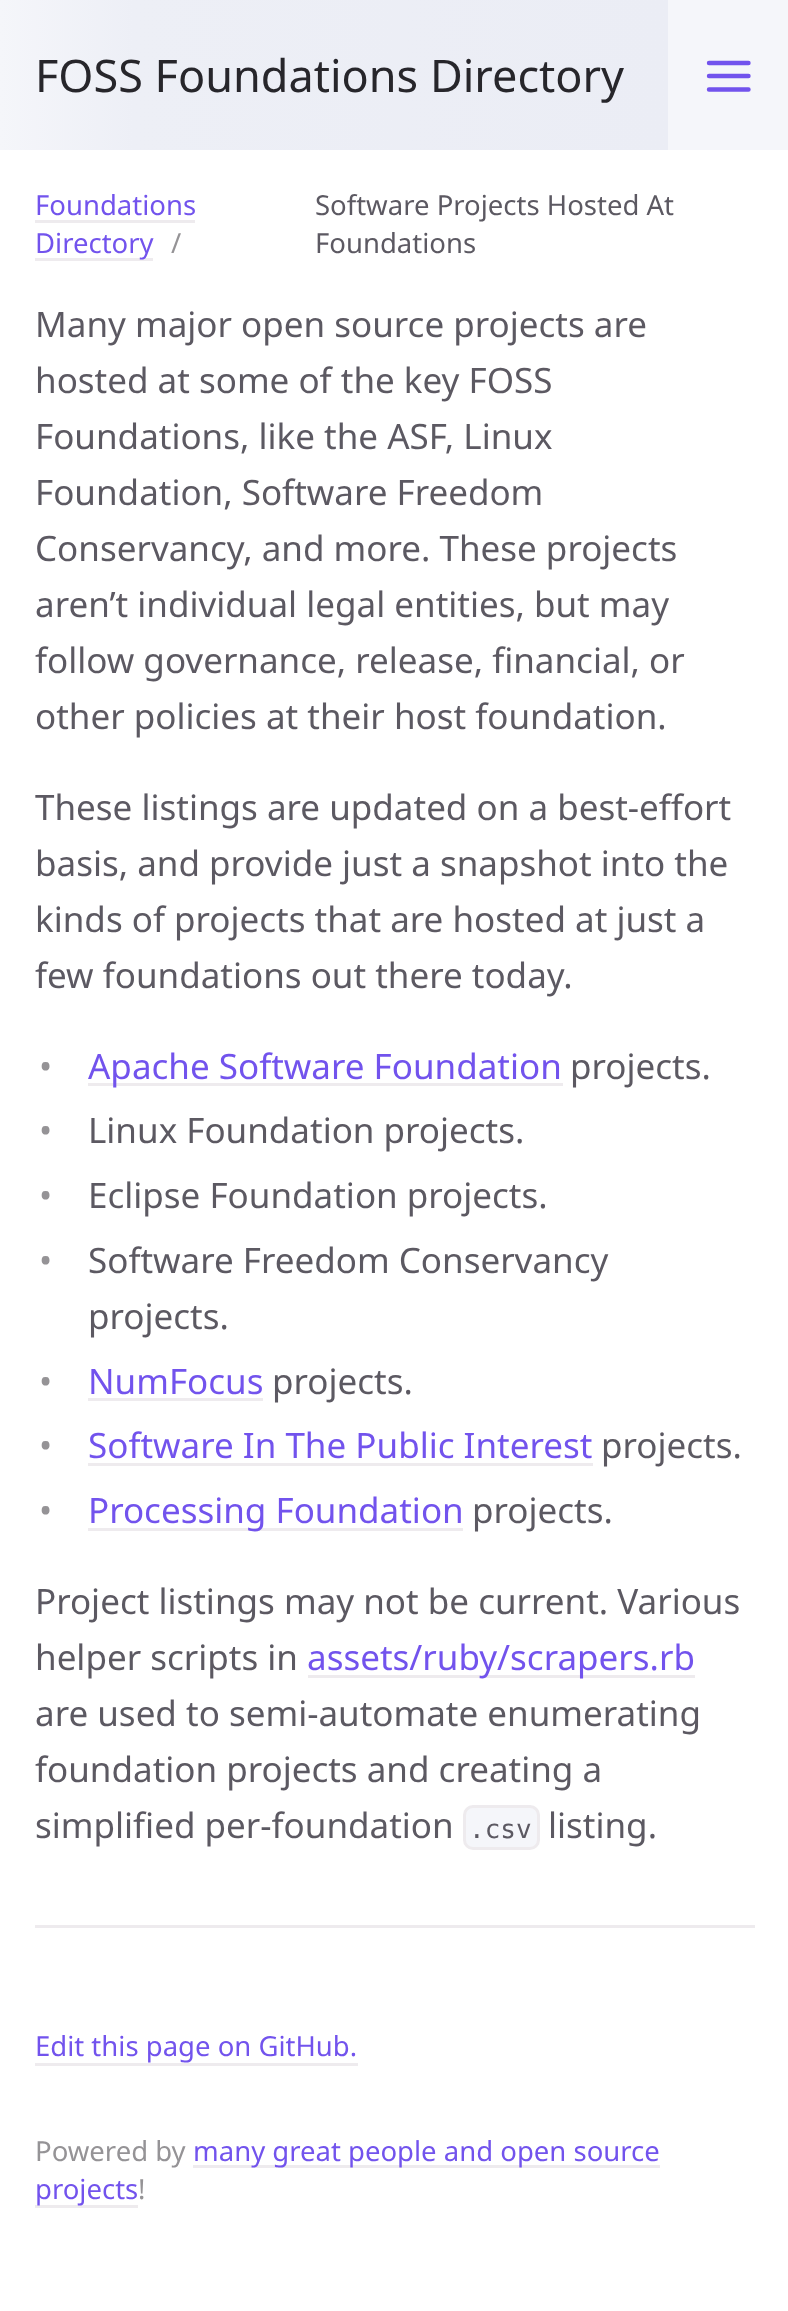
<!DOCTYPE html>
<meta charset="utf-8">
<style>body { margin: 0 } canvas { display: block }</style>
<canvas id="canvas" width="788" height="2311"></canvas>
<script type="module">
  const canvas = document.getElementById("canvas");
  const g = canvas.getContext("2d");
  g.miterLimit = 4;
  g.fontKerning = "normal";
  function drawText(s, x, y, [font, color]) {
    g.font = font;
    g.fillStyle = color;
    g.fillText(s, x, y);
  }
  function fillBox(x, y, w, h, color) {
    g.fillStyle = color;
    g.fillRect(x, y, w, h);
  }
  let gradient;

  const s1 = ["45px Noto Sans", "#27262B"];
  const s2 = ["27.5px Noto Sans", "#959396"];
  const s3 = ["27.5px Noto Sans", "#7253ED"];
  const s4 = ["27.5px Noto Sans", "#5C5962"];
  const s5 = ["35px Noto Sans", "#5C5962"];
  const s6 = ["35px Noto Sans", "#959396"];
  const s7 = ["35px Noto Sans", "#7253ED"];
  const s8 = ["26px DejaVu Sans Mono", "#5C5962"];

  fillBox(0, 0, 788, 2311, "#FFFFFF");
  fillBox(668, 0, 120, 150, "#F5F6FA");
  gradient = g.createLinearGradient(668, 75, 0, 75);
  gradient.addColorStop(0, "#EBEDF5");
  gradient.addColorStop(0.8, "#EDEFF6");
  gradient.addColorStop(1, "#F5F6FA");
  g.fillStyle = gradient;
  g.fillRect(0, 0, 668, 150);
  drawText("FOSS Foundations Directory", 35, 92, s1);
  g.beginPath();
  g.moveTo(709, 76);
  g.lineTo(748.5, 76);
  g.moveTo(709, 63);
  g.lineTo(748.5, 63);
  g.moveTo(709, 89.5);
  g.lineTo(748.5, 89.5);
  g.strokeStyle = "#7253ED";
  g.lineWidth = 4.4;
  g.lineCap = "round";
  g.lineJoin = "round";
  g.stroke();
  drawText("Powered by", 35, 2161, s2);
  fillBox(193, 2165, 467, 3, "#EEEBEE");
  drawText("many great people and open source", 193, 2161, s3);
  fillBox(35, 2205, 103, 3, "#EEEBEE");
  drawText("projects", 35, 2199, s3);
  drawText("!", 138, 2199, s2);
  drawText("Foundations", 35, 215, s3);
  fillBox(35, 220, 160, 3, "#EEEBEE");
  fillBox(35, 258, 118, 3, "#EEEBEE");
  drawText("Directory", 35, 253, s3);
  drawText("/", 171, 253, s2);
  drawText("Software Projects Hosted At", 315, 215, s4);
  drawText("Foundations", 315, 253, s4);
  drawText("Many major open source projects are", 35, 337, s5);
  drawText("hosted at some of the key FOSS", 35, 393, s5);
  drawText("Foundations, like the ASF, Linux", 35, 449, s5);
  drawText("Foundation, Software Freedom", 35, 505, s5);
  drawText("Conservancy, and more. These projects", 35, 561, s5);
  drawText("aren’t individual legal entities, but may", 35, 617, s5);
  drawText("follow governance, release, financial, or", 35, 673, s5);
  drawText("other policies at their host foundation.", 35, 729, s5);
  drawText("These listings are updated on a best-effort", 35, 820, s5);
  drawText("basis, and provide just a snapshot into the", 35, 876, s5);
  drawText("kinds of projects that are hosted at just a", 35, 932, s5);
  drawText("few foundations out there today.", 35, 988, s5);
  drawText("•", 39, 1079, s6);
  fillBox(88, 1083, 475, 3, "#EEEBEE");
  drawText("Apache Software Foundation", 88, 1079, s7);
  drawText("projects.", 570, 1079, s5);
  drawText("•", 39, 1143, s6);
  drawText("Linux Foundation projects.", 88, 1143, s5);
  drawText("•", 39, 1208, s6);
  drawText("Eclipse Foundation projects.", 88, 1208, s5);
  drawText("•", 39, 1273, s6);
  drawText("Software Freedom Conservancy", 88, 1273, s5);
  drawText("projects.", 88, 1329, s5);
  drawText("•", 39, 1394, s6);
  drawText("NumFocus", 88, 1394, s7);
  fillBox(88, 1398, 175, 3, "#EEEBEE");
  drawText("projects.", 272, 1394, s5);
  drawText("•", 39, 1458, s6);
  drawText("Software In The Public Interest", 88, 1458, s7);
  fillBox(88, 1463, 505, 3, "#EEEBEE");
  drawText("projects.", 601, 1458, s5);
  drawText("•", 39, 1523, s6);
  fillBox(88, 1528, 375, 3, "#EEEBEE");
  drawText("Processing Foundation", 88, 1523, s7);
  drawText("projects.", 472, 1523, s5);
  drawText("Project listings may not be current. Various", 35, 1614, s5);
  drawText("helper scripts in", 35, 1670, s5);
  fillBox(308, 1675, 387, 3, "#EEEBEE");
  drawText("assets/ruby/scrapers.rb", 307, 1670, s7);
  drawText("are used to semi-automate enumerating", 35, 1726, s5);
  drawText("foundation projects and creating a", 35, 1782, s5);
  drawText("simplified per-foundation", 35, 1838, s5);
  g.fillStyle = "#F5F6FA";
  g.beginPath();
  g.roundRect(464.5, 1806.5, 74, 42, 8.5);
  g.fill();
  g.strokeStyle = "#EEEBEE";
  g.lineWidth = 3;
  g.lineJoin = "miter";
  g.stroke();
  drawText(".csv", 469, 1838, s8);
  drawText("listing.", 548, 1838, s5);
  fillBox(35, 1925, 720, 3, "#EEEBEE");
  drawText("Edit this page on GitHub.", 35, 2056, s3);
  fillBox(35, 2063, 323, 3, "#EEEBEE");
</script>
